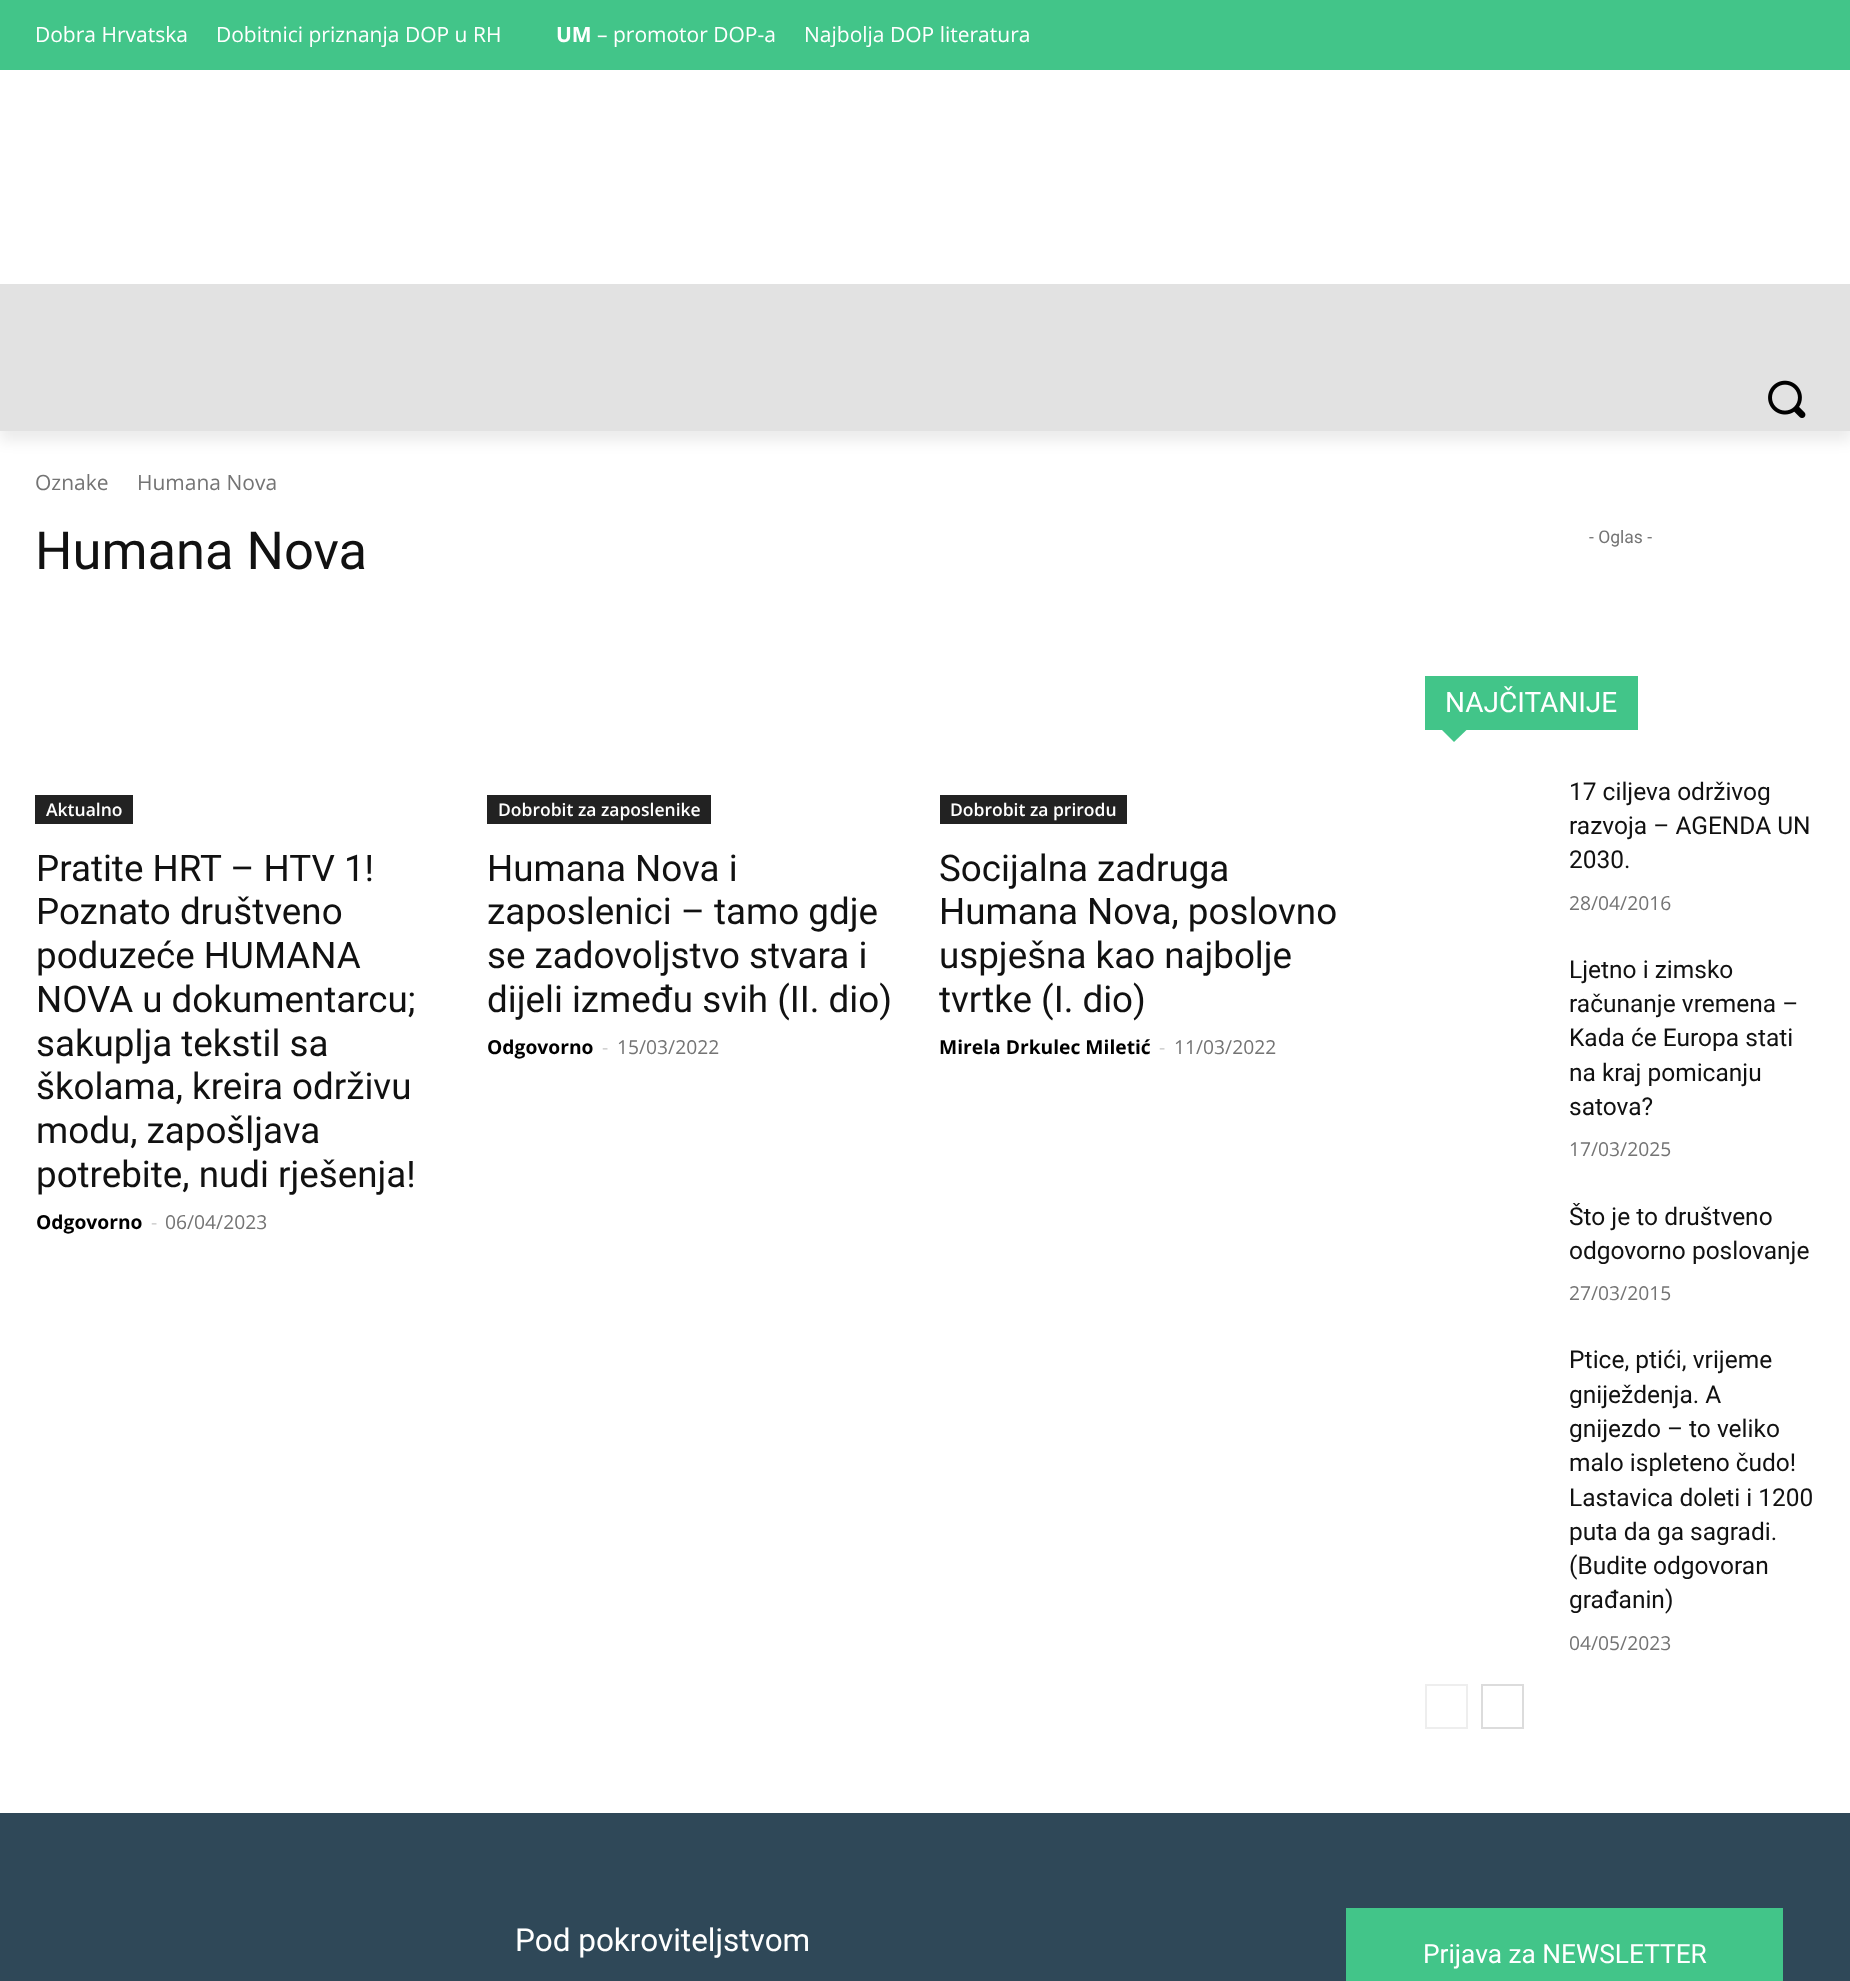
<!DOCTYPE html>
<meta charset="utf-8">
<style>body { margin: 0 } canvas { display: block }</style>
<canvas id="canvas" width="1850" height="1981"></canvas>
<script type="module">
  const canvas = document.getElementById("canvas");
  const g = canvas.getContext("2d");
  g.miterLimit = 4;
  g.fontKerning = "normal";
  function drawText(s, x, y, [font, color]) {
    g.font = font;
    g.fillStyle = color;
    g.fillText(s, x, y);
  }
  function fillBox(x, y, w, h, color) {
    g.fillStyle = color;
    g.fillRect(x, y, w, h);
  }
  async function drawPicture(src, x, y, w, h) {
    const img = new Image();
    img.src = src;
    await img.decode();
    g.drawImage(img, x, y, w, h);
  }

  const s1 = ["21px Open Sans", "#FFFFFF"];
  const s2 = ["bold 21px Open Sans", "#FFFFFF"];
  const s3 = ["21px Open Sans", "#747474"];
  const s4 = ["52.5px Roboto", "#111111"];
  const s5 = ["600 17.5px Open Sans", "#FFFFFF"];
  const s6 = ["36.75px Roboto", "#111111"];
  const s7 = ["bold 19.25px Open Sans", "#000000"];
  const s8 = ["19.25px Open Sans", "#CCCCCC"];
  const s9 = ["19.25px Open Sans", "#747474"];
  const s10 = ["17.5px Roboto", "#747474"];
  const s11 = ["28px Roboto", "#FFFFFF"];
  const s12 = ["24.5px Roboto", "#111111"];
  const s13 = ["31.5px Roboto", "#FFFFFF"];
  const s14 = ["26.25px Roboto", "#FFFFFF"];

  fillBox(0, 0, 1850, 1981, "#FFFFFF");
  fillBox(0, 0, 1850, 70, "#42C589");
  fillBox(0, 284, 1850, 147, "#E2E2E2");
  g.save();
  g.beginPath();
  g.moveTo(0, 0);
  g.lineTo(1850, 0);
  g.lineTo(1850, 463);
  g.lineTo(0, 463);
  g.closePath();
  g.moveTo(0, 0);
  g.lineTo(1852, 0);
  g.lineTo(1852, 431);
  g.lineTo(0, 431);
  g.closePath();
  g.clip("evenodd");
  g.fillStyle = "rgba(0, 0, 0, 0.08)";
  g.filter = "blur(7px)";
  g.beginPath();
  g.rect(0, 11, 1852, 430);
  g.fill();
  g.filter = "none";
  g.restore();
  drawText("Dobra Hrvatska", 35, 42, s1);
  drawText("Dobitnici priznanja DOP u RH", 216, 42, s1);
  drawText("UM", 556, 42, s2);
  drawText("– promotor DOP-a", 597, 42, s1);
  drawText("Najbolja DOP literatura", 804, 42, s1);
  await drawPicture("pic1.png", 1768, 380, 38, 38);
  drawText("Oznake", 35, 490, s3);
  drawText("Humana Nova", 137, 490, s3);
  drawText("Humana Nova", 35, 569, s4);
  fillBox(35, 795, 98, 29, "#222222");
  drawText("Aktualno", 46, 816, s5);
  drawText("Pratite HRT – HTV 1!", 36, 881, s6);
  drawText("Poznato društveno", 36, 924, s6);
  drawText("poduzeće HUMANA", 36, 968, s6);
  drawText("NOVA u dokumentarcu;", 36, 1012, s6);
  drawText("sakuplja tekstil sa", 36, 1056, s6);
  drawText("školama, kreira održivu", 36, 1099, s6);
  drawText("modu, zapošljava", 36, 1143, s6);
  drawText("potrebite, nudi rješenja!", 36, 1187, s6);
  drawText("Odgovorno", 36, 1229, s7);
  drawText("-", 151, 1229, s8);
  drawText("06/04/2023", 165, 1229, s9);
  fillBox(487, 795, 224, 29, "#222222");
  drawText("Dobrobit za zaposlenike", 498, 816, s5);
  drawText("Humana Nova i", 487, 881, s6);
  drawText("zaposlenici – tamo gdje", 487, 924, s6);
  drawText("se zadovoljstvo stvara i", 487, 968, s6);
  drawText("dijeli između svih (II. dio)", 487, 1012, s6);
  drawText("Odgovorno", 487, 1054, s7);
  drawText("-", 602, 1054, s8);
  drawText("15/03/2022", 617, 1054, s9);
  fillBox(940, 795, 187, 29, "#222222");
  drawText("Dobrobit za prirodu", 950, 816, s5);
  drawText("Socijalna zadruga", 939, 881, s6);
  drawText("Humana Nova, poslovno", 939, 924, s6);
  drawText("uspješna kao najbolje", 939, 968, s6);
  drawText("tvrtke (I. dio)", 939, 1012, s6);
  drawText("Mirela Drkulec Miletić", 939, 1054, s7);
  drawText("-", 1159, 1054, s8);
  drawText("11/03/2022", 1174, 1054, s9);
  drawText("- Oglas -", 1589, 543, s10);
  fillBox(1425, 676, 213, 54, "#42C589");
  drawText("NAJČITANIJE", 1445, 712, s11);
  g.fillStyle = "#42C589";
  g.beginPath();
  g.moveTo(1442, 730);
  g.lineTo(1466.5, 730);
  g.lineTo(1454, 742);
  g.closePath();
  g.fill();
  drawText("17 ciljeva održivog", 1569, 800, s12);
  drawText("razvoja – AGENDA UN", 1569, 834, s12);
  drawText("2030.", 1569, 868, s12);
  drawText("28/04/2016", 1569, 910, s9);
  drawText("Ljetno i zimsko", 1569, 978, s12);
  drawText("računanje vremena –", 1569, 1012, s12);
  drawText("Kada će Europa stati", 1569, 1046, s12);
  drawText("na kraj pomicanju", 1569, 1081, s12);
  drawText("satova?", 1569, 1115, s12);
  drawText("17/03/2025", 1569, 1156, s9);
  drawText("Što je to društveno", 1569, 1225, s12);
  drawText("odgovorno poslovanje", 1569, 1259, s12);
  drawText("27/03/2015", 1569, 1300, s9);
  drawText("Ptice, ptići, vrijeme", 1569, 1368, s12);
  drawText("gniježdenja. A", 1569, 1403, s12);
  drawText("gnijezdo – to veliko", 1569, 1437, s12);
  drawText("malo ispleteno čudo!", 1569, 1471, s12);
  drawText("Lastavica doleti i 1200", 1569, 1506, s12);
  drawText("puta da ga sagradi.", 1569, 1540, s12);
  drawText("(Budite odgovoran", 1569, 1574, s12);
  drawText("građanin)", 1569, 1608, s12);
  drawText("04/05/2023", 1569, 1650, s9);
  g.strokeStyle = "#EEEEEE";
  g.lineWidth = 2;
  g.strokeRect(1426, 1685, 41, 43);
  g.strokeStyle = "#DCDCDC";
  g.strokeRect(1482, 1685, 41, 43);
  fillBox(0, 1813, 1850, 168, "#2F4858");
  drawText("Pod pokroviteljstvom", 515, 1951, s13);
  fillBox(1346, 1908, 437, 73, "#42C589");
  drawText("Prijava za NEWSLETTER", 1423, 1963, s14);
</script>
